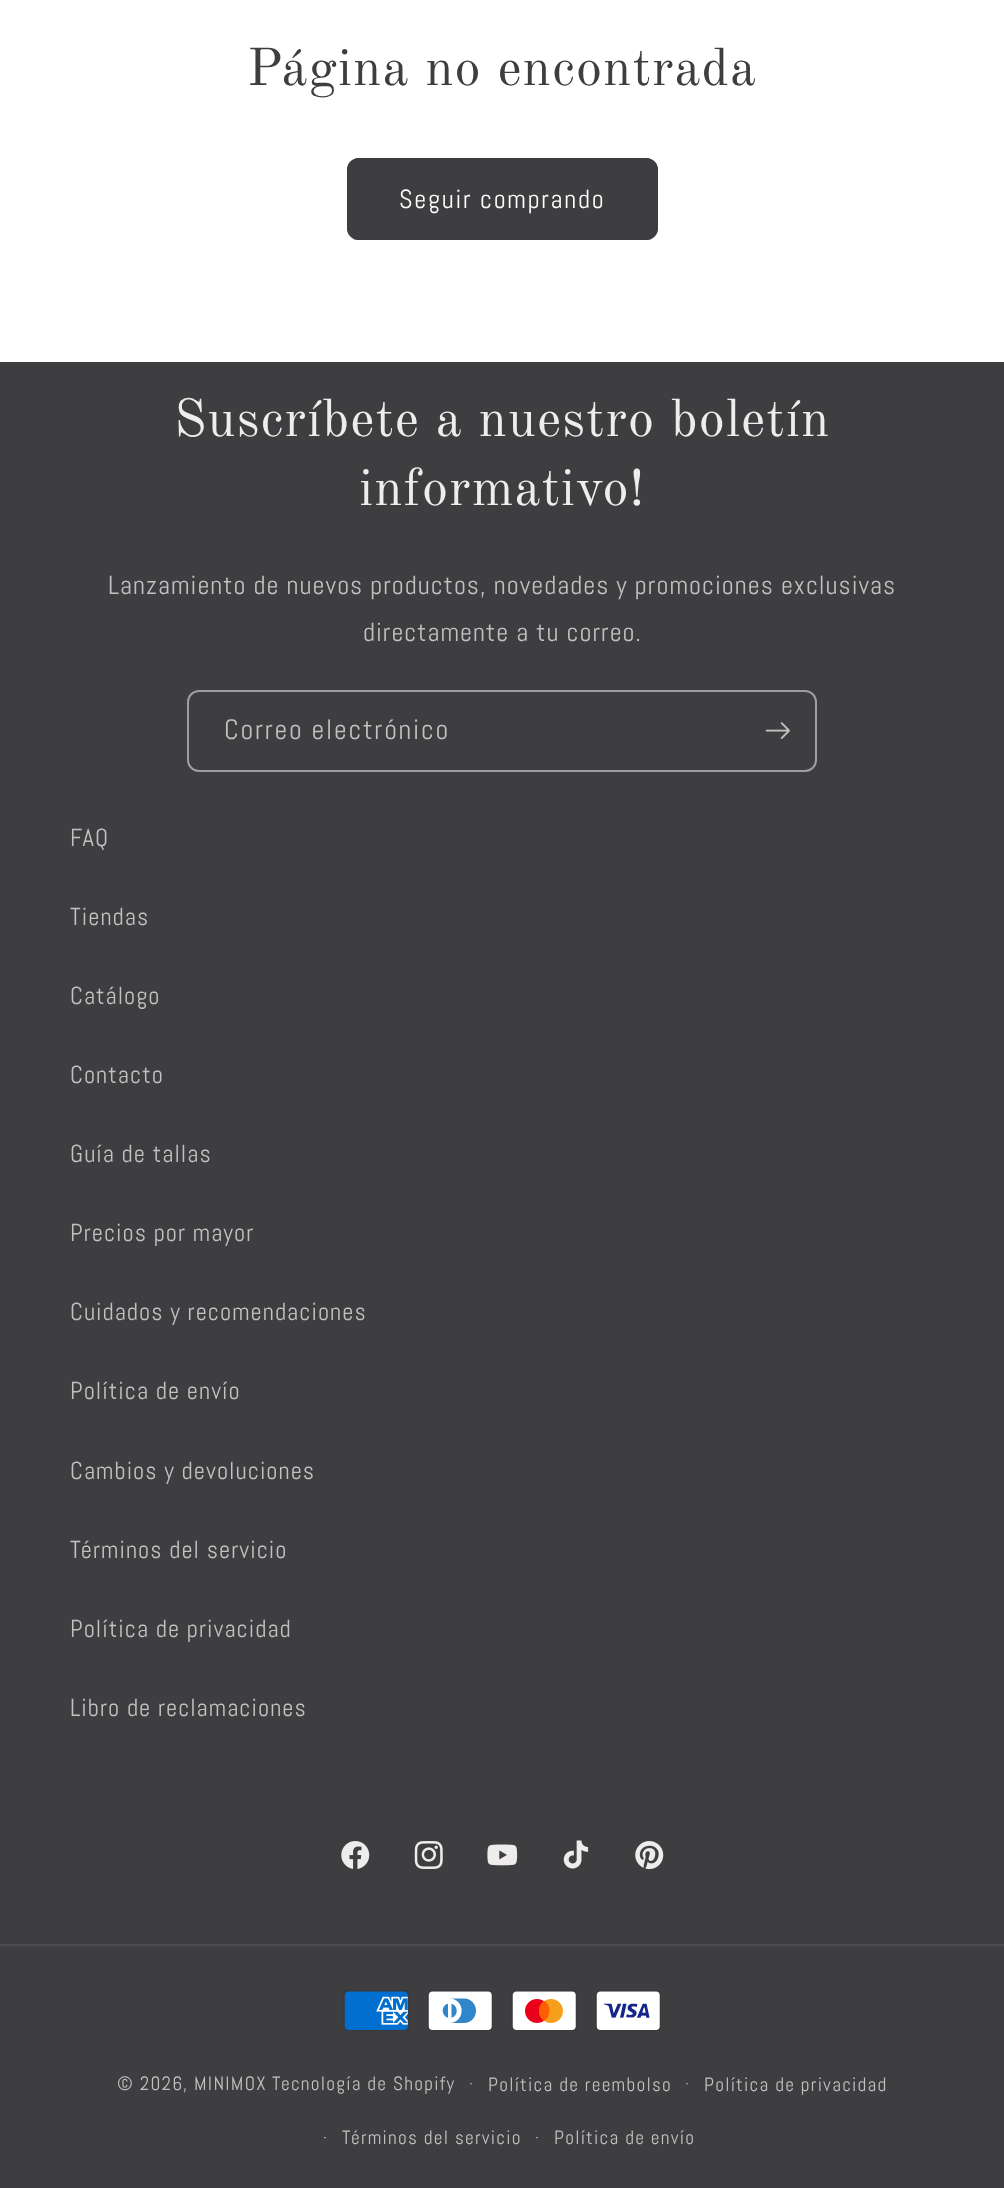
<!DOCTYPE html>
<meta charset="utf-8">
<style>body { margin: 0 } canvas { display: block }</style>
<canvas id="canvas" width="1004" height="2188"></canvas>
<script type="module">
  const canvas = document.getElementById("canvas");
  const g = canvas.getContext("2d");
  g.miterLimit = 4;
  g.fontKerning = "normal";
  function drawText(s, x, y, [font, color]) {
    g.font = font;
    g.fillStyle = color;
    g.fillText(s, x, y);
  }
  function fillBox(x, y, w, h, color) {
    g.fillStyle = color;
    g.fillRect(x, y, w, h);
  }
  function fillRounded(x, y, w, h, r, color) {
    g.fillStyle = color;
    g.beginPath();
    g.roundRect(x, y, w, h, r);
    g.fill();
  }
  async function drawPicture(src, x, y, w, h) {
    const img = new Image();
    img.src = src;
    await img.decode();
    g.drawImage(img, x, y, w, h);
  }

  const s1 = ["52.5px Old Standard TT", "#3E3D40"];
  const s2 = ["26.25px Abel", "#FFFFFF"];
  const s3 = ["52.5px Old Standard TT", "#EFECEC"];
  const s4 = ["26.25px Abel", "#C3C0C1"];
  const s5 = ["28px Abel", "#C3C0C1"];
  const s6 = ["24.5px Abel", "#C3C0C1"];
  const s7 = ["19.25px Abel", "#C3C0C1"];
  const s8 = ["18px Abel", "#C3C0C1"];

  fillBox(0, 0, 1004, 2188, "#FFFFFF");
  g.letterSpacing = "1.05px";
  drawText("Página no encontrada", 247, 85, s1);
  fillRounded(347, 158, 311, 82, 12, "#3E3D40");
  g.beginPath();
  g.roundRect(348, 159, 309, 80, 11);
  g.strokeStyle = "#3E3D40";
  g.lineWidth = 2;
  g.stroke();
  g.letterSpacing = "1.75px";
  drawText("Seguir comprando", 399, 208, s2);
  fillBox(0, 362, 1004, 1826, "#3E3D40");
  g.letterSpacing = "1.05px";
  drawText("Suscríbete a nuestro boletín", 174, 436, s3);
  drawText("informativo!", 359, 505, s3);
  drawText("Lanzamiento de nuevos productos, novedades y promociones exclusivas", 108, 594, s4);
  drawText("directamente a tu correo.", 363, 641, s4);
  g.beginPath();
  g.roundRect(188, 691, 628, 80, 11);
  g.strokeStyle = "#9F9D9F";
  g.stroke();
  g.letterSpacing = "1.75px";
  drawText("Correo electrónico", 224, 739, s5);
  await drawPicture("pic1.png", 765, 722, 25, 17);
  g.letterSpacing = "1.05px";
  drawText("FAQ", 70, 846, s6);
  drawText("Tiendas", 70, 925, s6);
  drawText("Catálogo", 70, 1004, s6);
  drawText("Contacto", 70, 1083, s6);
  drawText("Guía de tallas", 70, 1162, s6);
  drawText("Precios por mayor", 70, 1241, s6);
  drawText("Cuidados y recomendaciones", 70, 1320, s6);
  drawText("Política de envío", 70, 1399, s6);
  drawText("Cambios y devoluciones", 70, 1479, s6);
  drawText("Términos del servicio", 70, 1558, s6);
  drawText("Política de privacidad", 70, 1637, s6);
  drawText("Libro de reclamaciones", 70, 1716, s6);
  await drawPicture("pic2.png", 341, 1841, 29, 28);
  await drawPicture("pic3.png", 414, 1841, 29, 28);
  await drawPicture("pic4.png", 487, 1844, 31, 22);
  await drawPicture("pic5.png", 563, 1840, 26, 29);
  await drawPicture("pic6.png", 635, 1841, 29, 29);
  fillBox(0, 1944, 1004, 2, "#4C4B4E");
  await drawPicture("pic7.png", 343, 1990, 66, 41);
  await drawPicture("pic8.png", 427, 1990, 66, 41);
  await drawPicture("pic9.png", 511, 1990, 66, 41);
  await drawPicture("pic10.png", 595, 1990, 66, 41);
  g.letterSpacing = "1.25px";
  drawText("© 2026, MINIMOX", 117, 2090, s7);
  drawText("Tecnología de Shopify", 272, 2090, s7);
  drawText("·", 469, 2090, s8);
  drawText("Política de reembolso", 488, 2091, s7);
  drawText("·", 685, 2090, s8);
  drawText("Política de privacidad", 704, 2091, s7);
  drawText("·", 323, 2144, s8);
  drawText("Términos del servicio", 342, 2144, s7);
  drawText("·", 535, 2144, s8);
  drawText("Política de envío", 554, 2144, s7);
</script>
